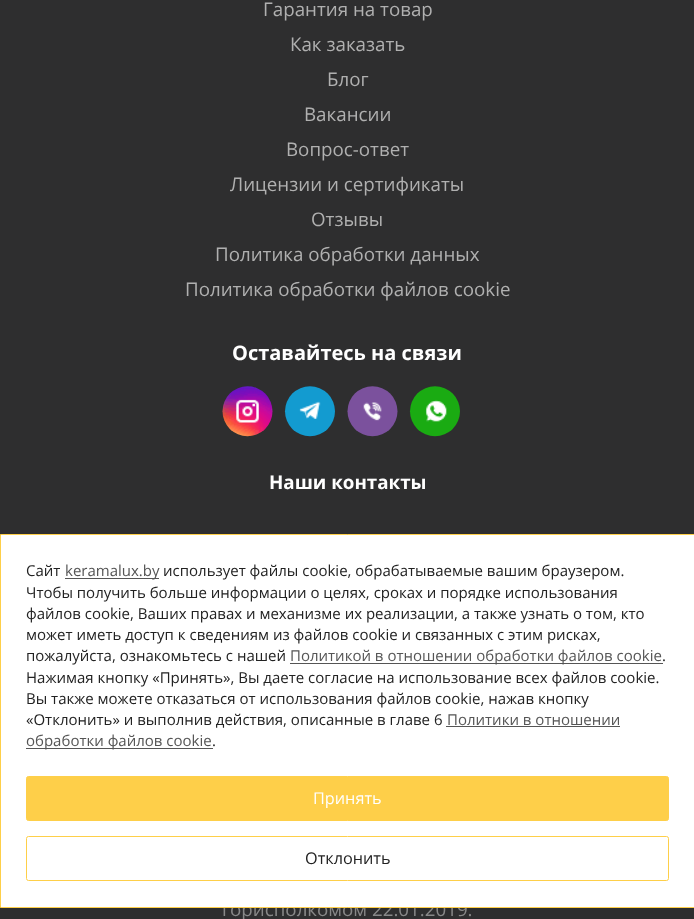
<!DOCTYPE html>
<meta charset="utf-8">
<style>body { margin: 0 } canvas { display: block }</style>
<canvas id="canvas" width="694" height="919"></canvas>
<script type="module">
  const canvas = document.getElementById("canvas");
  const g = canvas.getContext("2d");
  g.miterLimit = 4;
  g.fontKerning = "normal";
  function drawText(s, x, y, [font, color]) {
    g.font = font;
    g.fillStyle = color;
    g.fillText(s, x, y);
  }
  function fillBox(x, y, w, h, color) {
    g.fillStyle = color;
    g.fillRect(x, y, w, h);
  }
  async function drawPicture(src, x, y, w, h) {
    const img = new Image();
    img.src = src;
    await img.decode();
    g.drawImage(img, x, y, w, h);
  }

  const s1 = ["18.75px Open Sans", "#B0B0B0"];
  const s2 = ["bold 20px Open Sans", "#FFFFFF"];
  const s3 = ["bold 18.75px Open Sans", "#FFFFFF"];
  const s4 = ["18.75px Open Sans", "#888888"];
  const s5 = ["15px Open Sans", "#222222"];
  const s6 = ["15px Open Sans", "#555555"];
  const s7 = ["16.25px Open Sans", "#FFFFFF"];
  const s8 = ["16.25px Open Sans", "#222222"];

  fillBox(0, 0, 694, 919, "#2E2E2F");
  drawText("Гарантия на товар", 263, 16, s1);
  drawText("Как заказать", 290, 51, s1);
  drawText("Блог", 327, 86, s1);
  drawText("Вакансии", 304, 121, s1);
  drawText("Вопрос-ответ", 286, 156, s1);
  drawText("Лицензии и сертификаты", 230, 191, s1);
  drawText("Отзывы", 311, 226, s1);
  drawText("Политика обработки данных", 215, 261, s1);
  drawText("Политика обработки файлов cookie", 185, 296, s1);
  drawText("Оставайтесь на связи", 232, 360, s2);
  await drawPicture("pic1.png", 222, 386, 51, 51);
  await drawPicture("pic2.png", 284, 386, 51, 51);
  await drawPicture("pic3.png", 347, 386, 51, 51);
  await drawPicture("pic4.png", 409, 386, 51, 51);
  drawText("Наши контакты", 269, 489, s3);
  drawText("горисполкомом 22.01.2019.", 222, 916, s4);
  g.fillStyle = "#FFFFFF";
  g.beginPath();
  g.rect(0.5, 534.5, 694, 373);
  g.fill();
  g.strokeStyle = "#FECF49";
  g.stroke();
  drawText("Сайт", 26, 576, s5);
  fillBox(65, 578, 94, 1, "#555555");
  drawText("keramalux.by", 65, 576, s6);
  drawText("использует файлы cookie, обрабатываемые вашим браузером.", 163, 576, s5);
  drawText("Чтобы получить больше информации о целях, сроках и порядке использования", 26, 598, s5);
  drawText("файлов cookie, Ваших правах и механизме их реализации, а также узнать о том, кто", 26, 619, s5);
  drawText("может иметь доступ к сведениям из файлов cookie и связанных с этим рисках,", 26, 640, s5);
  drawText("пожалуйста, ознакомьтесь с нашей", 26, 661, s5);
  fillBox(290, 663, 373, 1, "#555555");
  drawText("Политикой в отношении обработки файлов cookie", 290, 661, s6);
  drawText(".", 662, 661, s5);
  drawText("Нажимая кнопку «Принять», Вы даете согласие на использование всех файлов cookie.", 26, 683, s5);
  drawText("Вы также можете отказаться от использования файлов cookie, нажав кнопку", 26, 704, s5);
  drawText("«Отклонить» и выполнив действия, описанные в главе 6", 26, 725, s5);
  drawText("Политики в отношении", 447, 725, s6);
  fillBox(446, 726, 174, 1, "#555555");
  fillBox(26, 748, 187, 1, "#555555");
  drawText("обработки файлов cookie", 26, 746, s6);
  drawText(".", 212, 746, s5);
  g.fillStyle = "#FECF49";
  g.beginPath();
  g.roundRect(26.5, 776.5, 642, 44, 2);
  g.fill();
  g.stroke();
  drawText("Принять", 313, 804, s7);
  g.beginPath();
  g.roundRect(26.5, 836.5, 642, 44, 2);
  g.stroke();
  drawText("Отклонить", 305, 864, s8);
</script>
